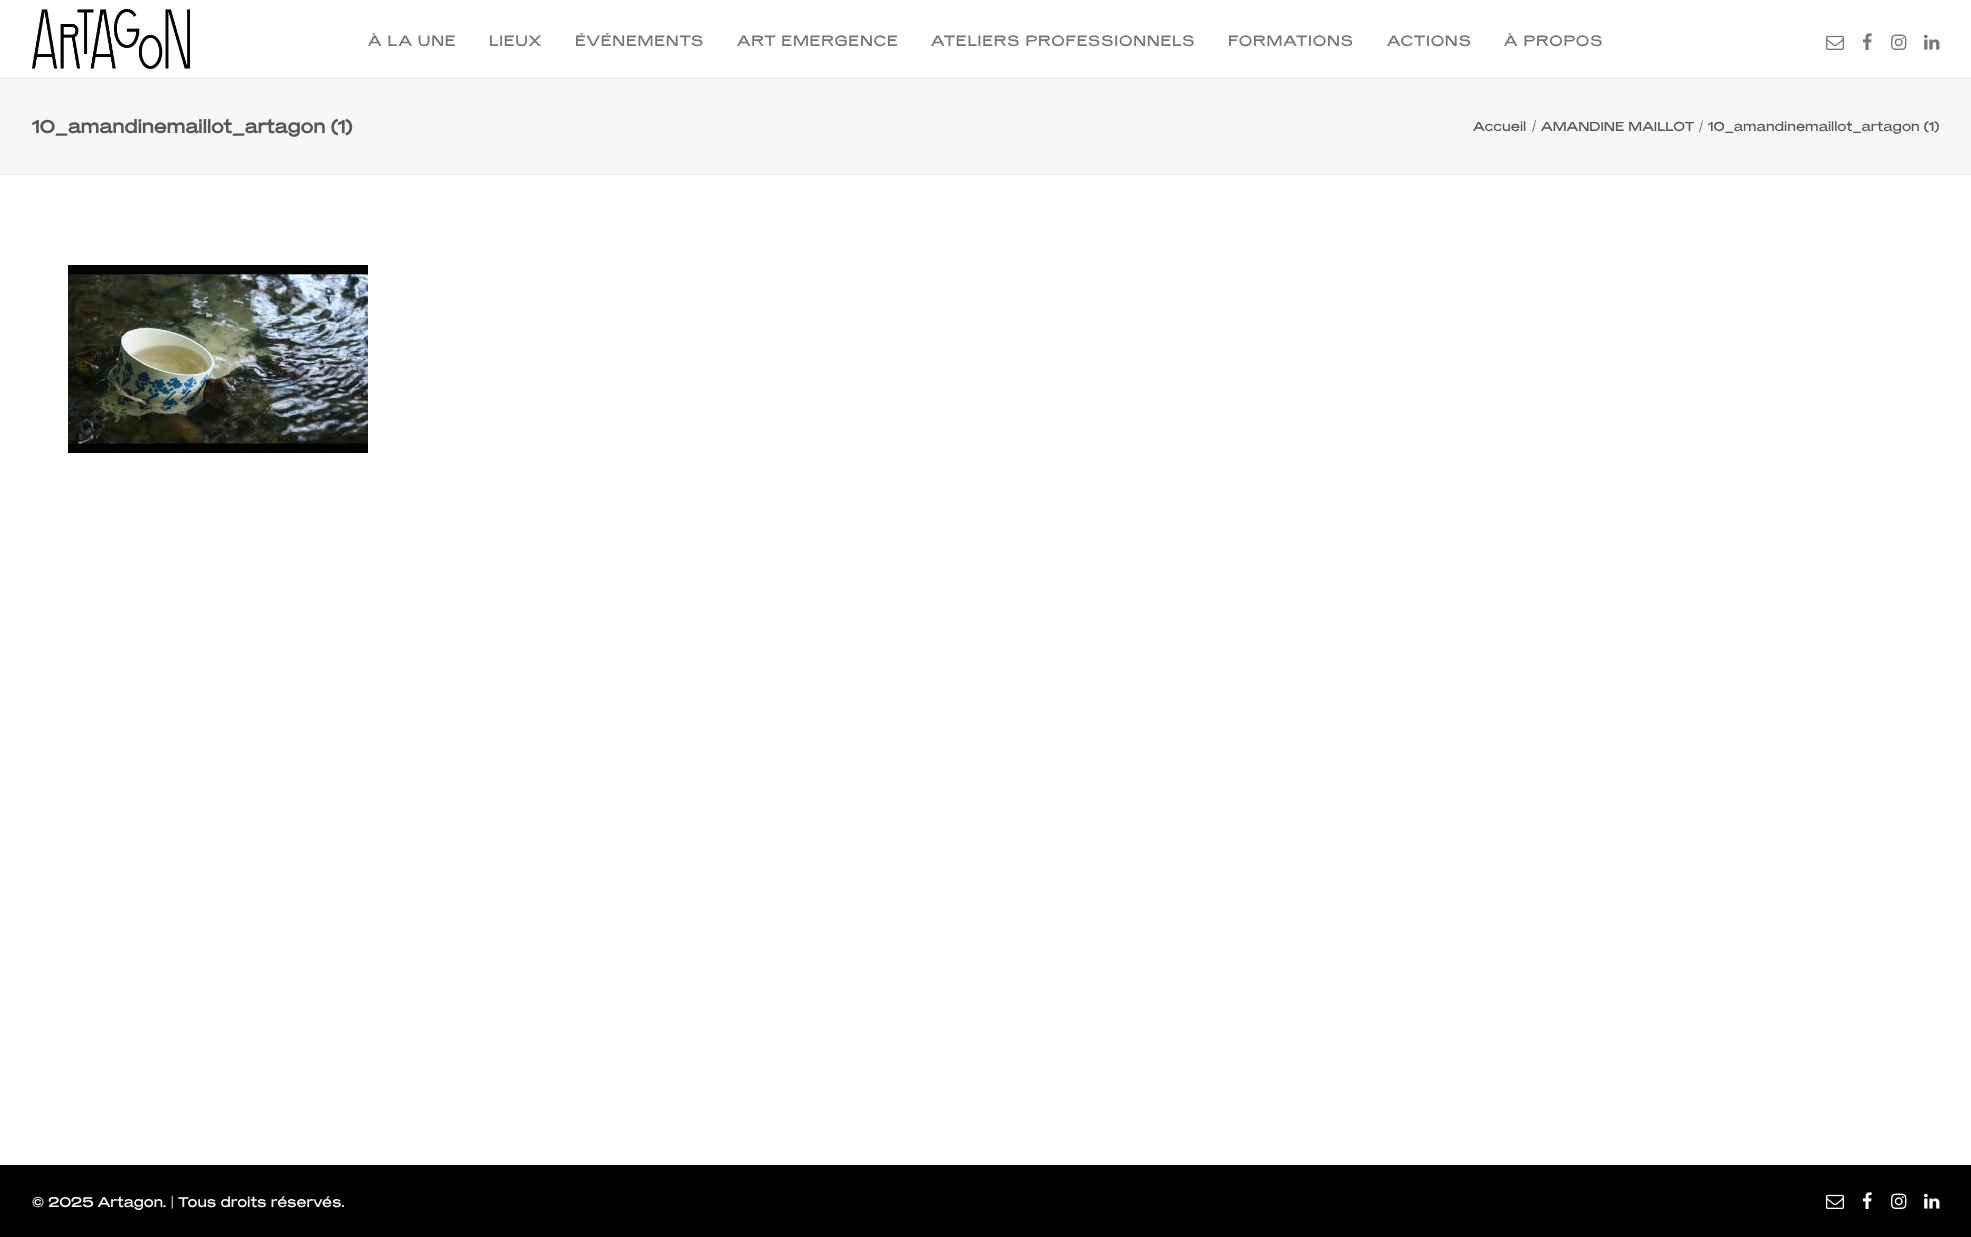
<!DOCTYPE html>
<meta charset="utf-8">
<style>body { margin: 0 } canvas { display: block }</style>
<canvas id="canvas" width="1971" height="1237"></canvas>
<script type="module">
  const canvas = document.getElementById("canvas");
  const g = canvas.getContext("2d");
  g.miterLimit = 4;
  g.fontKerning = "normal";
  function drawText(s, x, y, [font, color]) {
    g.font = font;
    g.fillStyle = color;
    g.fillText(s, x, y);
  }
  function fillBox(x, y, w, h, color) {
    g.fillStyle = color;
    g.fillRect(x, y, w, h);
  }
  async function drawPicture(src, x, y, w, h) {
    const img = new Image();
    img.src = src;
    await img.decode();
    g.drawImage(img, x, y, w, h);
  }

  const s1 = ["15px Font", "#777777"];
  const s2 = ["bold 18px Font", "#565656"];
  const s3 = ["13px Font", "#565656"];
  const s4 = ["14px Font", "#FFFFFF"];

  fillBox(0, 0, 1971, 1237, "#FFFFFF");
  await drawPicture("pic1.png", 32, 9, 158, 60);
  g.letterSpacing = "0.75px";
  drawText("À LA UNE", 368, 46, s1);
  drawText("LIEUX", 489, 46, s1);
  drawText("ÉVÉNEMENTS", 575, 46, s1);
  drawText("ART EMERGENCE", 737, 46, s1);
  drawText("ATELIERS PROFESSIONNELS", 931, 46, s1);
  drawText("FORMATIONS", 1228, 46, s1);
  drawText("ACTIONS", 1387, 46, s1);
  drawText("À PROPOS", 1504, 46, s1);
  await drawPicture("pic2.png", 1826, 35, 18, 15);
  await drawPicture("pic3.png", 1862, 33, 10, 17);
  await drawPicture("pic4.png", 1891, 34, 16, 16);
  await drawPicture("pic5.png", 1924, 34, 16, 16);
  fillBox(0, 79, 1971, 95, "#F7F7F7");
  fillBox(0, 78, 1971, 1, "#EAEAEA");
  fillBox(0, 174, 1971, 1, "#EAEAEA");
  g.letterSpacing = "0px";
  drawText("10_amandinemaillot_artagon (1)", 32, 133, s2);
  drawText("Accueil", 1473, 131, s3);
  drawText("/", 1532, 131, s3);
  drawText("AMANDINE MAILLOT", 1541, 131, s3);
  drawText("/", 1699, 131, s3);
  drawText("10_amandinemaillot_artagon (1)", 1708, 131, s3);
  await drawPicture("pic6.png", 68, 265, 300, 188);
  fillBox(0, 1165, 1971, 72, "#000000");
  drawText("© 2025 Artagon. | Tous droits réservés.", 32, 1207, s4);
  await drawPicture("pic7.png", 1826, 1194, 18, 15);
  await drawPicture("pic8.png", 1862, 1192, 10, 17);
  await drawPicture("pic9.png", 1891, 1193, 16, 16);
  await drawPicture("pic10.png", 1924, 1193, 16, 16);
</script>
